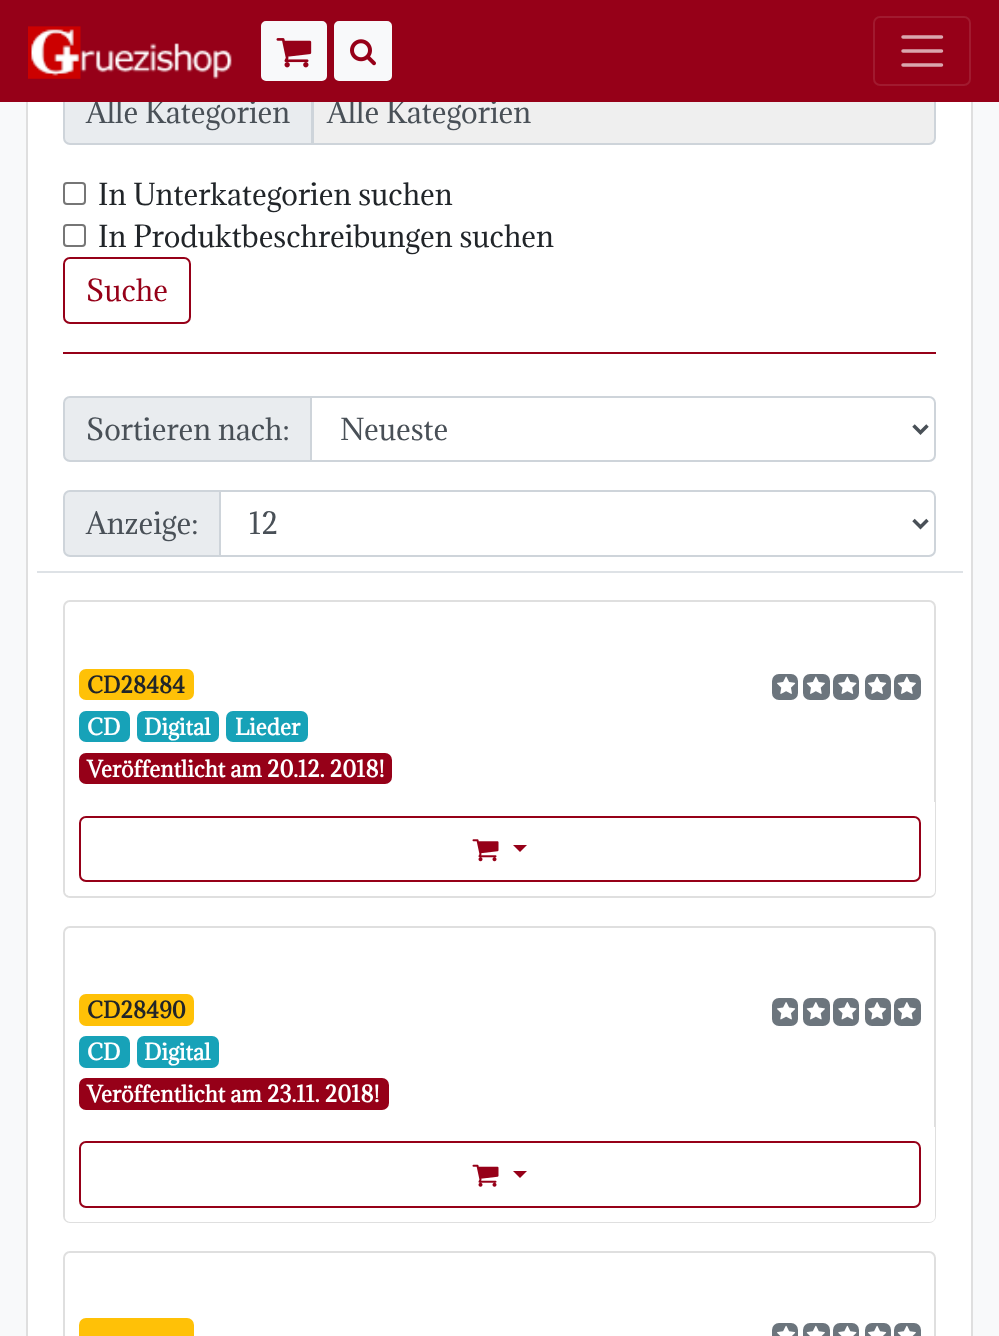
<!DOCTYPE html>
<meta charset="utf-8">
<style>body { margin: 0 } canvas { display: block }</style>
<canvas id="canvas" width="999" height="1336"></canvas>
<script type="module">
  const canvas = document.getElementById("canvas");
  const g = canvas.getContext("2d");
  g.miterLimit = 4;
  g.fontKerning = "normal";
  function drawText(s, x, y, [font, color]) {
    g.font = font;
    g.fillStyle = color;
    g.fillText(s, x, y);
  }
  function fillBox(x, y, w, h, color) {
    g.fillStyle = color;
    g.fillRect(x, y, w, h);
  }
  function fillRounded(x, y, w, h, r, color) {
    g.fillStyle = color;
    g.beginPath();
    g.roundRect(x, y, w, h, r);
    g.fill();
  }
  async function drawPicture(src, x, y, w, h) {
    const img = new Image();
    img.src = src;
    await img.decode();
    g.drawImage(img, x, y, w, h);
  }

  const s1 = ["28px Adamina", "#495057"];
  const s2 = ["28px Adamina", "#212529"];
  const s3 = ["28px Adamina", "#960018"];
  const s4 = ["bold 21px Adamina", "#212529"];
  const s5 = ["bold 21px Adamina", "#FFFFFF"];

  fillBox(0, 0, 999, 1336, "#F8F9FA");
  fillBox(28, 102, 943, 1234, "#FFFFFF");
  g.strokeStyle = "#DFDFDF";
  g.lineWidth = 2;
  g.strokeRect(27, -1, 945, 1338);
  g.fillStyle = "#E9ECEF";
  g.beginPath();
  g.roundRect(64, 80, 248, 64, [6, 0, 0, 6]);
  g.fill();
  g.strokeStyle = "#CED4DA";
  g.stroke();
  drawText("Alle Kategorien", 86, 123, s1);
  g.fillStyle = "#EFEFEF";
  g.beginPath();
  g.roundRect(313, 80, 622, 64, [0, 6, 6, 0]);
  g.fill();
  g.stroke();
  drawText("Alle Kategorien", 327, 123, s1);
  fillBox(0, 0, 999, 102, "#960018");
  await drawPicture("pic1.png", 28, 26, 204, 53);
  g.fillStyle = "#F8F9FA";
  g.beginPath();
  g.roundRect(262, 22, 64, 58, 4);
  g.fill();
  g.strokeStyle = "#F8F9FA";
  g.stroke();
  await drawPicture("pic2.png", 276, 38, 36, 30);
  g.beginPath();
  g.roundRect(335, 22, 56, 58, 4);
  g.fill();
  g.stroke();
  await drawPicture("pic3.png", 350, 39, 26, 27);
  g.beginPath();
  g.roundRect(874, 17, 96, 68, 6);
  g.strokeStyle = "#A11A2F";
  g.stroke();
  g.beginPath();
  g.moveTo(903, 37);
  g.lineTo(941.5, 37);
  g.moveTo(903, 51);
  g.lineTo(941.5, 51);
  g.moveTo(903, 65);
  g.lineTo(941.5, 65);
  g.strokeStyle = "#DAA6AE";
  g.lineWidth = 3.5;
  g.lineCap = "round";
  g.stroke();
  g.beginPath();
  g.roundRect(64, 183, 21, 21, 3);
  g.strokeStyle = "#767676";
  g.lineWidth = 2;
  g.stroke();
  drawText("In Unterkategorien suchen", 98, 205, s2);
  g.beginPath();
  g.roundRect(64, 225, 21, 21, 3);
  g.stroke();
  drawText("In Produktbeschreibungen suchen", 98, 247, s2);
  g.beginPath();
  g.roundRect(64, 258, 126, 65, 6);
  g.strokeStyle = "#960018";
  g.stroke();
  drawText("Suche", 86, 301, s3);
  fillBox(63, 352, 873, 2, "#960018");
  fillBox(37, 571, 926, 2, "#DEE2E6");
  g.fillStyle = "#E9ECEF";
  g.beginPath();
  g.roundRect(64, 397, 247, 64, [6, 0, 0, 6]);
  g.fill();
  g.strokeStyle = "#CED4DA";
  g.stroke();
  drawText("Sortieren nach:", 86, 440, s1);
  g.beginPath();
  g.roundRect(311, 397, 624, 64, [0, 6, 6, 0]);
  g.stroke();
  g.beginPath();
  g.moveTo(913.5, 425.5);
  g.lineTo(920.5, 432.5);
  g.lineTo(927.5, 425.5);
  g.strokeStyle = "#495057";
  g.lineWidth = 3.5;
  g.lineCap = "butt";
  g.stroke();
  drawText("Neueste", 340, 440, s1);
  g.fillStyle = "#E9ECEF";
  g.beginPath();
  g.roundRect(64, 491, 156, 65, [6, 0, 0, 6]);
  g.fill();
  g.strokeStyle = "#CED4DA";
  g.lineWidth = 2;
  g.stroke();
  drawText("Anzeige:", 86, 534, s1);
  g.beginPath();
  g.roundRect(220, 491, 715, 65, [0, 6, 6, 0]);
  g.stroke();
  g.beginPath();
  g.moveTo(913.5, 520);
  g.lineTo(920.5, 527);
  g.lineTo(927.5, 520);
  g.strokeStyle = "#495057";
  g.lineWidth = 3.5;
  g.stroke();
  drawText("12", 249, 534, s1);
  g.beginPath();
  g.roundRect(64, 601, 871, 296, 6);
  g.strokeStyle = "#DFDFDF";
  g.lineWidth = 2;
  g.stroke();
  fillRounded(79, 669, 115, 31, 7, "#FFC107");
  drawText("CD28484", 87, 693, s4);
  fillRounded(772, 674, 26, 26, 7, "#6C757D");
  await drawPicture("pic4.png", 777, 676, 19, 18);
  fillRounded(803, 674, 27, 26, 7, "#6C757D");
  await drawPicture("pic5.png", 806, 676, 19, 18);
  fillRounded(833, 674, 26, 26, 7, "#6C757D");
  await drawPicture("pic6.png", 838, 676, 19, 18);
  fillRounded(865, 674, 26, 26, 7, "#6C757D");
  await drawPicture("pic7.png", 868, 676, 19, 18);
  fillRounded(894, 674, 27, 26, 7, "#6C757D");
  await drawPicture("pic5.png", 897, 676, 19, 18);
  fillRounded(79, 711, 51, 31, 7, "#17A2B8");
  drawText("CD", 87, 735, s5);
  fillRounded(137, 711, 82, 31, 7, "#17A2B8");
  drawText("Digital", 144, 735, s5);
  fillRounded(226, 711, 82, 31, 7, "#17A2B8");
  drawText("Lieder", 235, 735, s5);
  fillRounded(79, 753, 313, 31, 7, "#960018");
  drawText("Veröffentlicht am 20.12. 2018!", 87, 777, s5);
  g.beginPath();
  g.roundRect(65, 802, 870, 94, [0, 0, 5, 5]);
  g.fill();
  g.beginPath();
  g.roundRect(80, 817, 840, 64, 6);
  g.strokeStyle = "#960018";
  g.stroke();
  await drawPicture("pic8.png", 472, 839, 27, 23);
  g.fillStyle = "#960018";
  g.beginPath();
  g.moveTo(513, 845);
  g.lineTo(527, 845);
  g.lineTo(520, 852);
  g.closePath();
  g.fill();
  g.beginPath();
  g.roundRect(64, 927, 871, 295, 6);
  g.strokeStyle = "#DFDFDF";
  g.stroke();
  fillRounded(79, 994, 115, 32, 7, "#FFC107");
  drawText("CD28490", 87, 1018, s4);
  fillRounded(772, 998, 26, 28, 7, "#6C757D");
  await drawPicture("pic9.png", 777, 1002, 19, 18);
  fillRounded(803, 998, 27, 28, 7, "#6C757D");
  await drawPicture("pic10.png", 806, 1002, 19, 18);
  fillRounded(833, 998, 26, 28, 7, "#6C757D");
  await drawPicture("pic11.png", 838, 1002, 19, 18);
  fillRounded(865, 998, 26, 28, 7, "#6C757D");
  await drawPicture("pic9.png", 868, 1002, 19, 18);
  fillRounded(894, 998, 27, 28, 7, "#6C757D");
  await drawPicture("pic10.png", 897, 1002, 19, 18);
  fillRounded(79, 1036, 51, 32, 7, "#17A2B8");
  drawText("CD", 87, 1060, s5);
  fillRounded(137, 1036, 82, 32, 7, "#17A2B8");
  drawText("Digital", 144, 1060, s5);
  fillRounded(79, 1078, 310, 32, 7, "#960018");
  drawText("Veröffentlicht am 23.11. 2018!", 87, 1102, s5);
  g.beginPath();
  g.roundRect(65, 1127, 870, 95, [0, 0, 5, 5]);
  g.fill();
  g.beginPath();
  g.roundRect(80, 1142, 840, 65, 6);
  g.strokeStyle = "#960018";
  g.stroke();
  await drawPicture("pic12.png", 472, 1164, 27, 23);
  g.fillStyle = "#960018";
  g.beginPath();
  g.moveTo(513, 1171);
  g.lineTo(527, 1171);
  g.lineTo(520, 1178);
  g.closePath();
  g.fill();
  g.beginPath();
  g.roundRect(64, 1252, 871, 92, 6);
  g.strokeStyle = "#DFDFDF";
  g.stroke();
  fillRounded(79, 1318, 115, 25, 7, "#FFC107");
  fillRounded(772, 1323, 26, 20, 7, "#6C757D");
  await drawPicture("pic13.png", 777, 1325, 19, 11);
  fillRounded(803, 1323, 27, 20, 7, "#6C757D");
  await drawPicture("pic14.png", 806, 1325, 19, 11);
  fillRounded(833, 1323, 26, 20, 7, "#6C757D");
  await drawPicture("pic15.png", 838, 1325, 19, 11);
  fillRounded(865, 1323, 26, 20, 7, "#6C757D");
  await drawPicture("pic16.png", 868, 1325, 19, 11);
  fillRounded(894, 1323, 27, 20, 7, "#6C757D");
  await drawPicture("pic14.png", 897, 1325, 19, 11);
</script>
